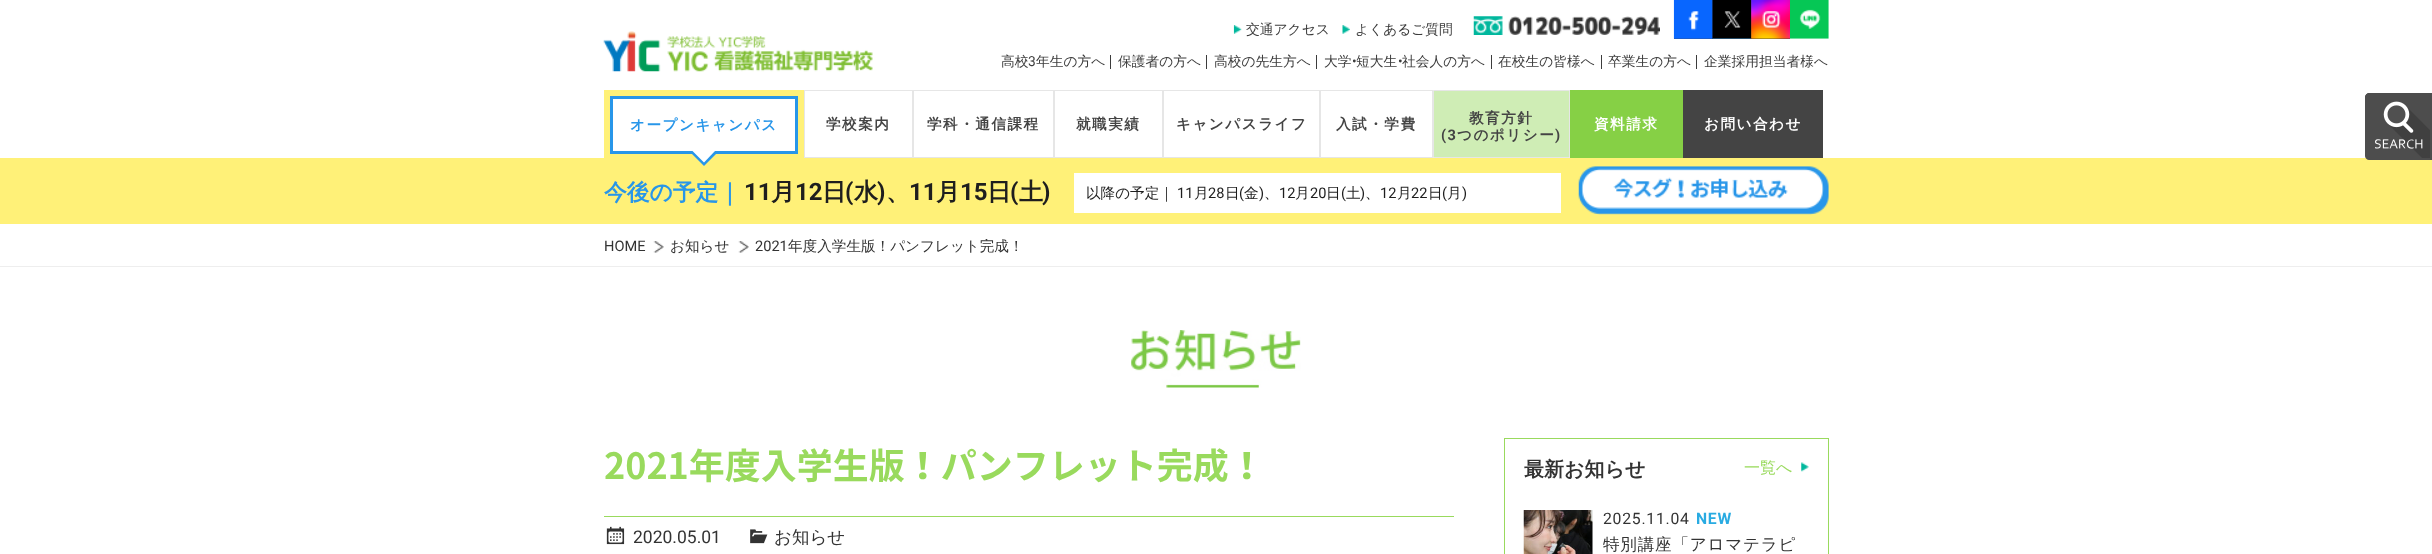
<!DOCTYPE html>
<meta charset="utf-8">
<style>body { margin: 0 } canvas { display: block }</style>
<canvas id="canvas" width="2432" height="554"></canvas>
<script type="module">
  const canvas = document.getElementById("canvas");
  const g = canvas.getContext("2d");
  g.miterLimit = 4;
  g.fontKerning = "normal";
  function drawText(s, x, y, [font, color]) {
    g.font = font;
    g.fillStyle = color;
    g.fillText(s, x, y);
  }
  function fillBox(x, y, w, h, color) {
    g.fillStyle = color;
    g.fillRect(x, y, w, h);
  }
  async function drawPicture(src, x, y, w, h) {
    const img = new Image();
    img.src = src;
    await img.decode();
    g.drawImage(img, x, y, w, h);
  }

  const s1 = ["500 13.75px WenQuanYi Zen Hei", "#3C3C3C"];
  const s2 = ["13.75px Roboto", "#3C3C3C"];
  const s3 = ["bold 14.6px WenQuanYi Zen Hei", "#2896E9"];
  const s4 = ["bold 14.6px WenQuanYi Zen Hei", "#444444"];
  const s5 = ["bold 14.6px Roboto", "#444444"];
  const s6 = ["bold 14.6px WenQuanYi Zen Hei", "#FFFFFF"];
  const s7 = ["bold 22.75px WenQuanYi Zen Hei", "#2896E9"];
  const s8 = ["bold 24px Roboto", "#1E1E1E"];
  const s9 = ["bold 24px WenQuanYi Zen Hei", "#1E1E1E"];
  const s10 = ["500 14.6px WenQuanYi Zen Hei", "#1E1E1E"];
  const s11 = ["14.6px Roboto", "#1E1E1E"];
  const s12 = ["14.6px Roboto", "#333333"];
  const s13 = ["500 14.6px WenQuanYi Zen Hei", "#333333"];
  const s14 = ["bold 36px Noto Sans JP", "#99DA5D"];
  const s15 = ["17.5px Roboto", "#333333"];
  const s16 = ["500 17.5px WenQuanYi Zen Hei", "#333333"];
  const s17 = ["bold 20px WenQuanYi Zen Hei", "#333333"];
  const s18 = ["500 16px WenQuanYi Zen Hei", "#99DA5D"];
  const s19 = ["15.75px Roboto", "#333333"];
  const s20 = ["bold 15.75px Roboto", "#29ABE2"];
  const s21 = ["500 16.6px WenQuanYi Zen Hei", "#333333"];

  fillBox(0, 0, 2432, 554, "#FFFFFF");
  await drawPicture("pic1.png", 1233, 25, 9, 9);
  drawText("交通アクセス", 1246, 34, s1);
  await drawPicture("pic2.png", 1342, 25, 8, 9);
  drawText("よくあるご質問", 1355, 34, s1);
  await drawPicture("pic3.png", 1473, 16, 187, 19);
  fillBox(1674, 0, 39, 39, "#36558F");
  await drawPicture("pic4.png", 1673, 0, 40, 39);
  fillBox(1713, 38, 38, 1, "#55ACEE");
  await drawPicture("pic5.png", 1712, 0, 39, 39);
  fillBox(1751, 0, 39, 39, "#464646");
  await drawPicture("pic6.png", 1751, 0, 39, 39);
  await drawPicture("pic7.png", 1790, 0, 39, 39);
  await drawPicture("pic8.png", 603, 31, 270, 41);
  drawText("高校", 1001, 66, s1);
  drawText("3", 1028, 66, s2);
  drawText("年生の方へ", 1036, 66, s1);
  fillBox(1110, 55, 1, 14, "#3C3C3C");
  drawText("保護者の方へ", 1118, 66, s1);
  fillBox(1206, 55, 1, 14, "#3C3C3C");
  drawText("高校の先生方へ", 1214, 66, s1);
  fillBox(1316, 55, 1, 14, "#3C3C3C");
  drawText("大学", 1324, 66, s1);
  drawText("•", 1352, 66, s2);
  drawText("短大生", 1356, 66, s1);
  drawText("•", 1398, 66, s2);
  drawText("社会人の方へ", 1402, 66, s1);
  fillBox(1491, 55, 1, 14, "#3C3C3C");
  drawText("在校生の皆様へ", 1498, 66, s1);
  fillBox(1601, 55, 1, 14, "#3C3C3C");
  drawText("卒業生の方へ", 1608, 66, s1);
  fillBox(1696, 55, 1, 14, "#3C3C3C");
  drawText("企業採用担当者様へ", 1704, 66, s1);
  fillBox(604, 90, 200, 68, "#FFF178");
  g.fillStyle = "#FFFFFF";
  g.beginPath();
  g.rect(611.5, 97.5, 185, 55);
  g.fill();
  g.strokeStyle = "#2896E9";
  g.lineWidth = 3;
  g.stroke();
  g.letterSpacing = "1.5px";
  drawText("オープンキャンパス", 630, 130, s3);
  fillBox(0, 158, 2432, 66, "#FFF178");
  g.fillStyle = "#2896E9";
  g.beginPath();
  g.moveTo(689, 151);
  g.lineTo(719, 151);
  g.lineTo(704, 166);
  g.closePath();
  g.fill();
  g.fillStyle = "#FFFFFF";
  g.beginPath();
  g.moveTo(692.5, 151);
  g.lineTo(715, 151);
  g.lineTo(704, 162.5);
  g.closePath();
  g.fill();
  g.strokeStyle = "#E6E6E6";
  g.lineWidth = 1;
  g.strokeRect(804.5, 90.5, 108, 67);
  drawText("学校案内", 826, 129, s4);
  g.strokeRect(913.5, 90.5, 140, 67);
  drawText("学科・通信課程", 927, 129, s4);
  g.strokeRect(1054.5, 90.5, 108, 67);
  drawText("就職実績", 1076, 129, s4);
  g.strokeRect(1163.5, 90.5, 156, 67);
  drawText("キャンパスライフ", 1176, 129, s4);
  g.strokeRect(1320.5, 90.5, 112, 67);
  drawText("入試・学費", 1336, 129, s4);
  g.fillStyle = "#CFEDB5";
  g.beginPath();
  g.rect(1433.5, 90.5, 136, 67);
  g.fill();
  g.stroke();
  drawText("教育方針", 1469, 123, s4);
  drawText("(3", 1441, 140, s5);
  drawText("つのポリシー", 1457, 140, s4);
  drawText(")", 1555, 140, s5);
  fillBox(1570, 90, 113, 68, "#86D045");
  drawText("資料請求", 1594, 129, s6);
  fillBox(1683, 90, 140, 68, "#444444");
  drawText("お問い合わせ", 1704, 129, s6);
  g.fillStyle = "#4D4D4D";
  g.beginPath();
  g.moveTo(2369, 93);
  g.lineTo(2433, 93);
  g.lineTo(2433, 160);
  g.lineTo(2369, 160);
  g.bezierCurveTo(2367, 160, 2365, 158, 2365, 156);
  g.lineTo(2365, 97);
  g.bezierCurveTo(2365, 95, 2367, 93, 2369, 93);
  g.closePath();
  g.fill();
  await drawPicture("pic9.png", 2365, 93, 65, 65);
  g.letterSpacing = "0px";
  drawText("今後の予定｜", 604, 200, s7);
  drawText("11", 744, 200, s8);
  drawText("月", 771, 200, s9);
  drawText("12", 795, 200, s8);
  drawText("日", 822, 200, s9);
  drawText("(", 845, 200, s8);
  drawText("水", 854, 200, s9);
  drawText(")", 877, 200, s8);
  drawText("、", 886, 200, s9);
  drawText("11", 909, 200, s8);
  drawText("月", 936, 200, s9);
  drawText("15", 960, 200, s8);
  drawText("日", 987, 200, s9);
  drawText("(", 1010, 200, s8);
  drawText("土", 1019, 200, s9);
  drawText(")", 1042, 200, s8);
  fillBox(1074, 173, 487, 40, "#FFFFFF");
  drawText("以降の予定｜", 1086, 198, s10);
  drawText("11", 1177, 198, s11);
  drawText("月", 1194, 198, s10);
  drawText("28", 1208, 198, s11);
  drawText("日", 1225, 198, s10);
  drawText("(", 1239, 198, s11);
  drawText("金", 1244, 198, s10);
  drawText(")", 1259, 198, s11);
  drawText("、", 1264, 198, s10);
  drawText("12", 1279, 198, s11);
  drawText("月", 1295, 198, s10);
  drawText("20", 1310, 198, s11);
  drawText("日", 1326, 198, s10);
  drawText("(", 1341, 198, s11);
  drawText("土", 1346, 198, s10);
  drawText(")", 1360, 198, s11);
  drawText("、", 1365, 198, s10);
  drawText("12", 1380, 198, s11);
  drawText("月", 1397, 198, s10);
  drawText("22", 1411, 198, s11);
  drawText("日", 1428, 198, s10);
  drawText("(", 1442, 198, s11);
  drawText("月", 1447, 198, s10);
  drawText(")", 1462, 198, s11);
  await drawPicture("pic10.png", 1578, 166, 251, 49);
  fillBox(0, 266, 2432, 1, "#EEEEEE");
  await drawPicture("pic11.png", 653, 241, 11, 12);
  drawText("HOME", 604, 251, s12);
  await drawPicture("pic12.png", 738, 241, 11, 12);
  drawText("お知らせ", 670, 251, s13);
  drawText("2021", 755, 251, s12);
  g.save();
  g.beginPath();
  g.rect(0, 239, 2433, 27);
  g.clip();
  drawText("年度入学生版！パンフレット完成！", 788, 251, s13);
  g.restore();
  await drawPicture("pic13.png", 1131, 330, 170, 58);
  drawText("2021年度入学生版！パンフレット完成！", 604, 479, s14);
  fillBox(604, 516, 850, 1, "#99DA5D");
  await drawPicture("pic14.png", 606, 526, 19, 19);
  drawText("2020.05.01", 633, 543, s15);
  await drawPicture("pic15.png", 750, 529, 18, 15);
  drawText("お知らせ", 774, 543, s16);
  g.strokeStyle = "#99DA5D";
  g.strokeRect(1504.5, 438.5, 324, 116);
  drawText("最新お知らせ", 1524, 476, s17);
  drawText("一覧へ", 1744, 473, s18);
  await drawPicture("pic16.png", 1801, 462, 8, 10);
  await drawPicture("pic17.png", 1523, 510, 70, 44);
  g.letterSpacing = "0.75px";
  drawText("2025.11.04", 1603, 524, s19);
  drawText("NEW", 1696, 524, s20);
  drawText("特別講座「アロマテラピ", 1603, 550, s21);
</script>
